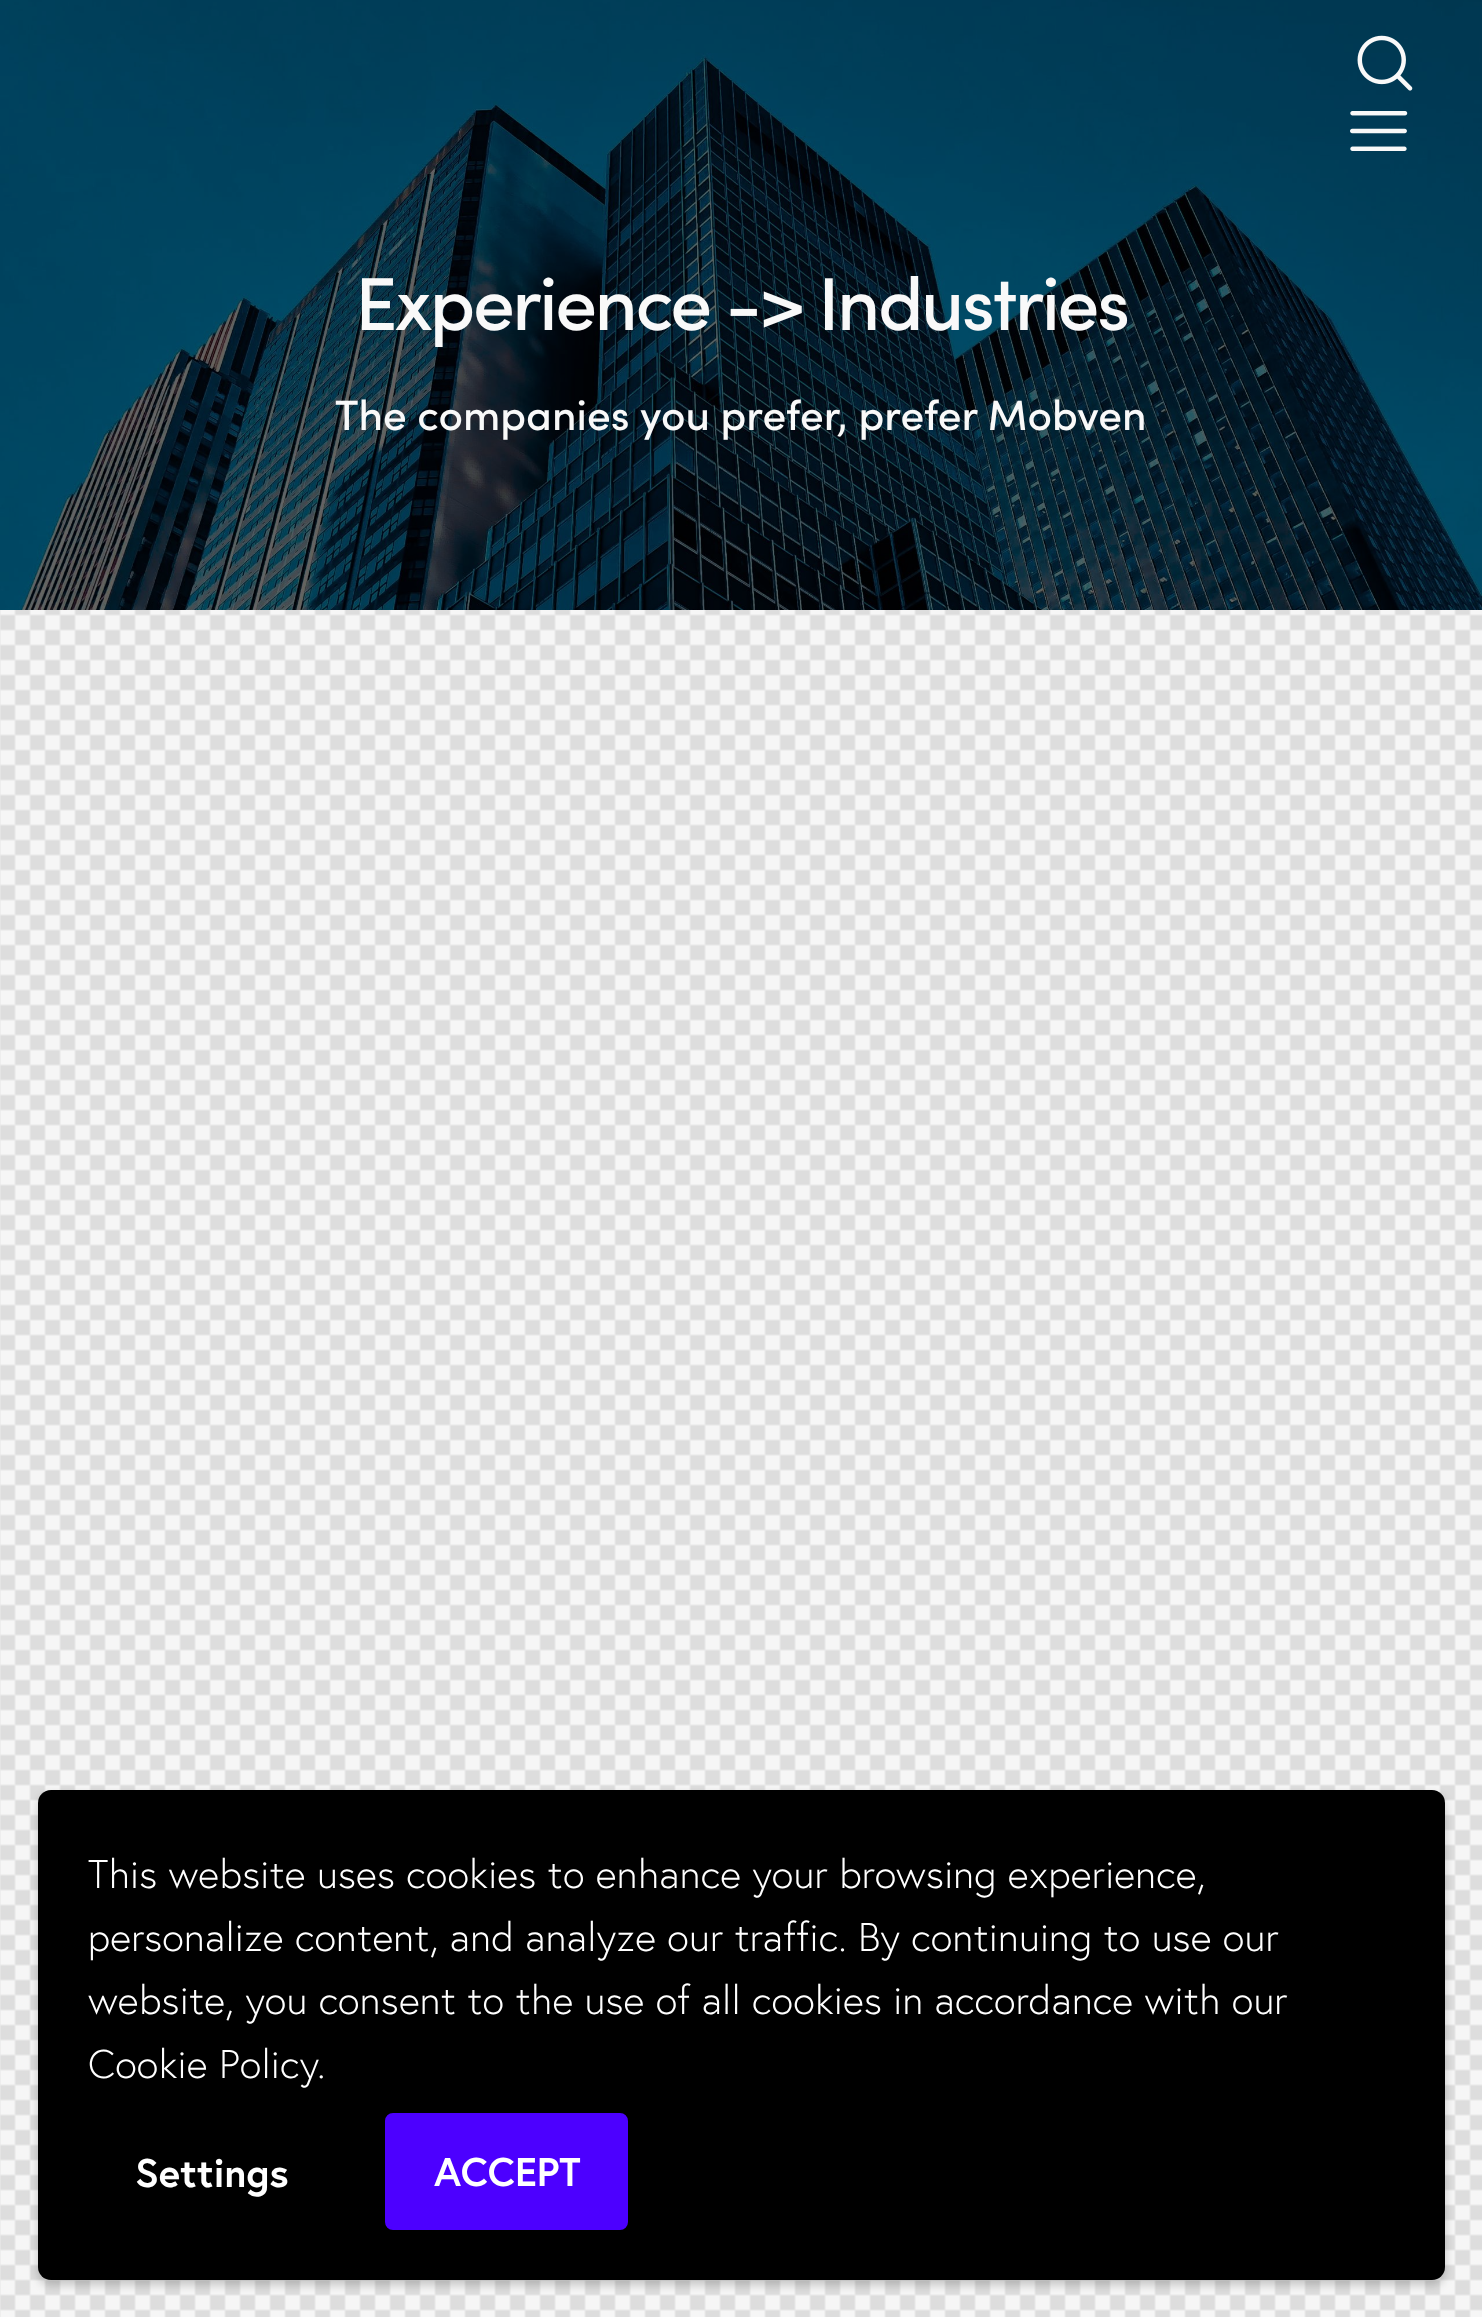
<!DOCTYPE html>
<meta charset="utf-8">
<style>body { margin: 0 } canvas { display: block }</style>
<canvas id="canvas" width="1482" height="2317"></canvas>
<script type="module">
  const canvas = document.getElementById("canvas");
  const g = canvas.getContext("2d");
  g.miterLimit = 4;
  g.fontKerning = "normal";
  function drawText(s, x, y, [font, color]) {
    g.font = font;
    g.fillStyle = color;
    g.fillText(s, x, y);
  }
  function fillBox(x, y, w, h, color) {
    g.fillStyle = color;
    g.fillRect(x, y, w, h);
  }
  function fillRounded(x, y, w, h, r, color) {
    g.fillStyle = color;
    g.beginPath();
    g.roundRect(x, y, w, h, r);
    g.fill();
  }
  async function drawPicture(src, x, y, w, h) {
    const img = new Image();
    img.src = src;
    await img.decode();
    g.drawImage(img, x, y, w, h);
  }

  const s1 = ["500 75px Sofia", "#F9F9F9"];
  const s2 = ["500 42.5px Sofia", "#F9F9F9"];
  const s3 = ["300 40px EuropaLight", "#FFFFFF"];
  const s4 = ["bold 40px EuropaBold", "#FFFFFF"];

  fillBox(0, 0, 1482, 2317, "#FFFFFF");
  await drawPicture("pic1.png", 0, 610, 1482, 1707);
  await drawPicture("pic2.png", 0, 0, 1482, 610);
  await drawPicture("pic3.png", 1357, 35, 56, 56);
  await drawPicture("pic4.png", 1350, 111, 58, 40);
  g.letterSpacing = "-2.5px";
  drawText("Experience -> Industries", 355, 330, s1);
  g.letterSpacing = "0px";
  drawText("The companies you prefer, prefer Mobven", 335, 430, s2);
  g.fillStyle = "rgba(0, 0, 0, 0.2)";
  g.filter = "blur(5px)";
  g.beginPath();
  g.roundRect(38, 1795, 1407, 490, 13);
  g.fill();
  g.filter = "none";
  fillRounded(38, 1790, 1407, 490, 13, "#000000");
  g.letterSpacing = "0.25px";
  drawText("This website uses cookies to enhance your browsing experience,", 88, 1888, s3);
  drawText("personalize content, and analyze our traffic. By continuing to use our", 88, 1951, s3);
  drawText("website, you consent to the use of all cookies in accordance with our", 88, 2014, s3);
  drawText("Cookie Policy.", 88, 2078, s3);
  g.letterSpacing = "0px";
  drawText("Settings", 135, 2187, s4);
  g.fillStyle = "#4C00FF";
  g.beginPath();
  g.roundRect(386.5, 2114.5, 240, 114, 6.5);
  g.fill();
  g.strokeStyle = "#4C00FF";
  g.lineWidth = 3;
  g.stroke();
  drawText("ACCEPT", 434, 2186, s4);
</script>
